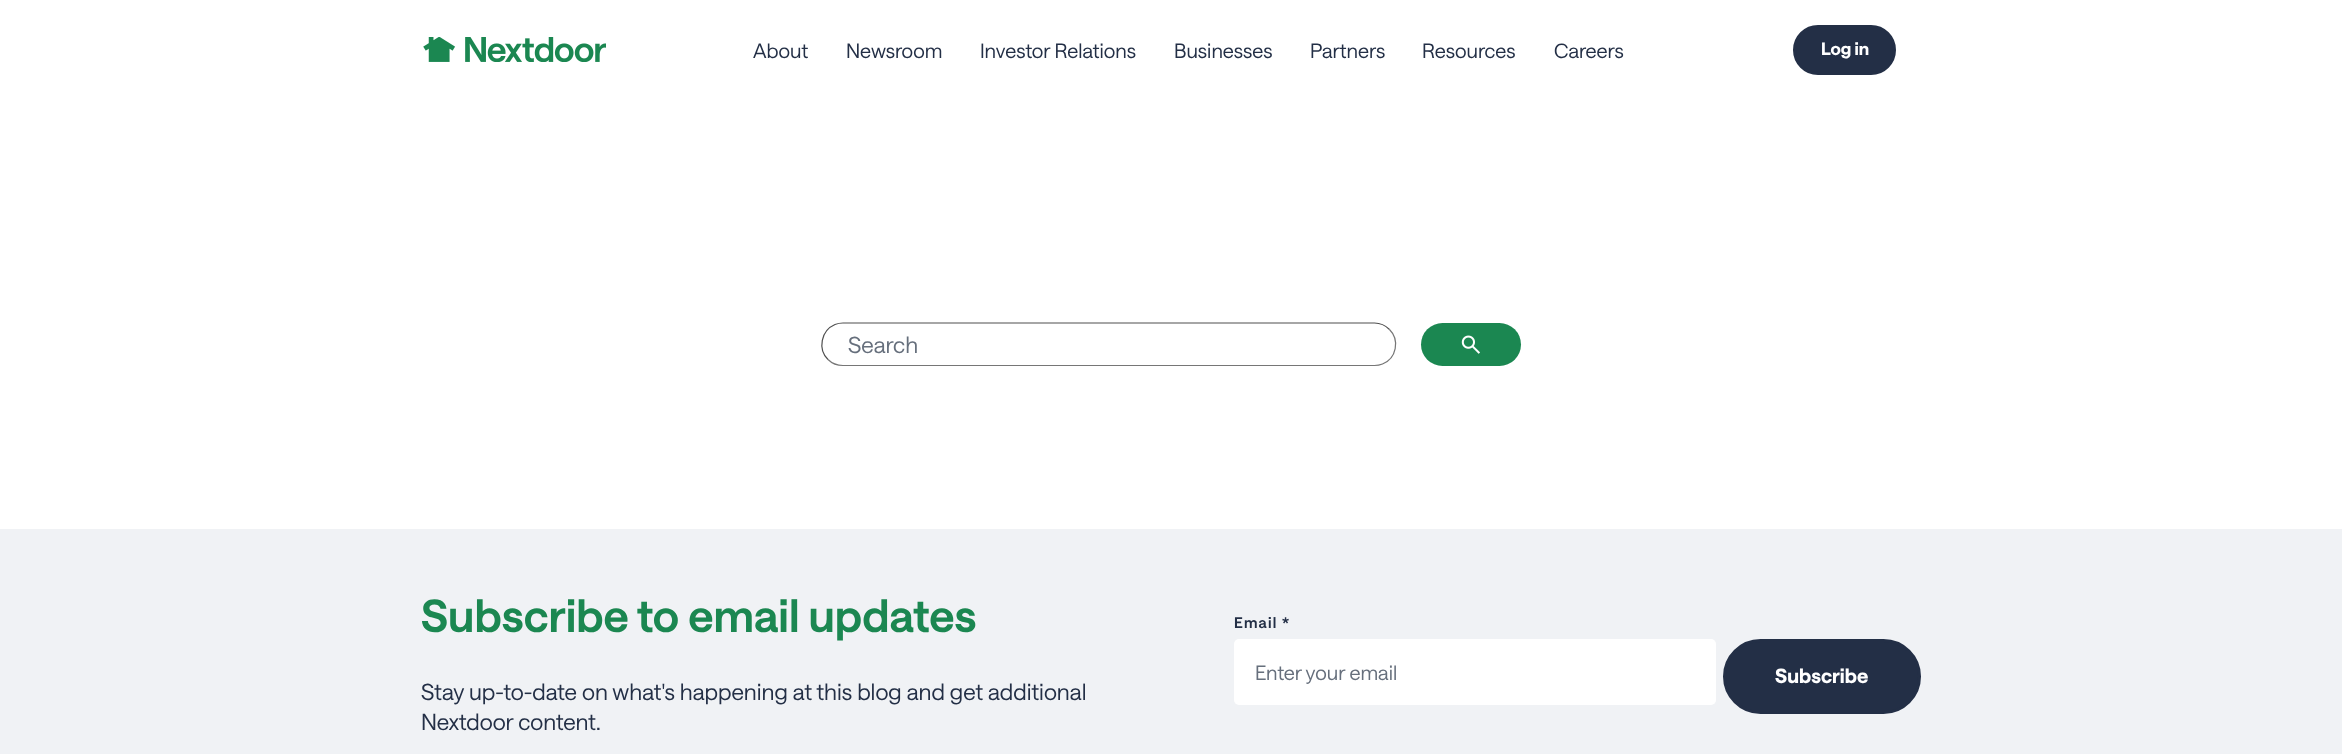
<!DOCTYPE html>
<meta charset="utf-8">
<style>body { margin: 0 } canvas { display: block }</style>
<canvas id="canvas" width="2342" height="754"></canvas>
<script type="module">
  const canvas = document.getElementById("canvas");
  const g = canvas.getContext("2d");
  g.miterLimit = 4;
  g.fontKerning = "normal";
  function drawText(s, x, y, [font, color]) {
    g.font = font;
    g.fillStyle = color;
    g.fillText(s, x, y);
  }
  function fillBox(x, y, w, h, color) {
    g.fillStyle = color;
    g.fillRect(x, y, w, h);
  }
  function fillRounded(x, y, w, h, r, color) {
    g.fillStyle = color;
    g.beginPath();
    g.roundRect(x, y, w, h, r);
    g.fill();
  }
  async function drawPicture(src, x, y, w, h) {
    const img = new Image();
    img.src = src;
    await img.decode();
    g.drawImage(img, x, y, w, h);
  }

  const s1 = ["20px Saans", "#232F46"];
  const s2 = ["bold 17.5px Saans", "#FFFFFF"];
  const s3 = ["22.5px Saans", "#666F7C"];
  const s4 = ["600 45px Saans", "#1B8751"];
  const s5 = ["22.5px Saans", "#232F46"];
  const s6 = ["600 15px Saans", "#232F46"];
  const s7 = ["20px Saans", "#666F7C"];
  const s8 = ["bold 20px Saans", "#FFFFFF"];

  fillBox(0, 0, 2342, 754, "#FFFFFF");
  await drawPicture("pic1.png", 423, 37, 183, 25);
  drawText("About", 753, 58, s1);
  drawText("Newsroom", 846, 58, s1);
  drawText("Investor Relations", 980, 58, s1);
  drawText("Businesses", 1174, 58, s1);
  drawText("Partners", 1310, 58, s1);
  drawText("Resources", 1422, 58, s1);
  drawText("Careers", 1554, 58, s1);
  g.beginPath();
  g.roundRect(1794.5, 26.5, 100, 47, 23.5);
  g.fill();
  g.strokeStyle = "#232F46";
  g.lineWidth = 3;
  g.stroke();
  drawText("Log in", 1821, 55, s2);
  g.beginPath();
  g.moveTo(1389.5, 329.5);
  g.bezierCurveTo(1400, 340, 1396.5, 358.5, 1382.5, 364);
  g.bezierCurveTo(1380, 365, 1377, 365.5, 1374.5, 365.5);
  g.lineTo(843, 365.5);
  g.bezierCurveTo(837.5, 365.5, 832, 363.5, 828, 359.5);
  g.strokeStyle = "#767676";
  g.lineWidth = 1.2;
  g.stroke();
  g.beginPath();
  g.moveTo(828, 359.5);
  g.bezierCurveTo(817.5, 349, 821, 330.5, 835, 324.5);
  g.bezierCurveTo(837.5, 323.5, 840.5, 323, 843, 323);
  g.lineTo(1374.5, 323);
  g.bezierCurveTo(1380, 323, 1385.5, 325.5, 1389.5, 329.5);
  g.strokeStyle = "#4F4F4F";
  g.stroke();
  drawText("Search", 848, 353, s3);
  fillRounded(1421, 323, 100, 43, 21.5, "#1B8751");
  await drawPicture("pic2.png", 1461, 335, 19, 19);
  fillBox(0, 529, 2342, 225, "#F0F2F5");
  drawText("Subscribe to email updates", 421, 632, s4);
  drawText("Stay up-to-date on what's happening at this blog and get additional", 421, 700, s5);
  drawText("Nextdoor content.", 421, 730, s5);
  g.letterSpacing = "1.25px";
  drawText("Email *", 1234, 628, s6);
  fillRounded(1234, 639, 482, 66, 5, "#FFFFFF");
  g.letterSpacing = "0px";
  drawText("Enter your email", 1255, 680, s7);
  g.fillStyle = "#232F46";
  g.beginPath();
  g.roundRect(1724.5, 640.5, 195, 72, 36);
  g.fill();
  g.strokeStyle = "#232F46";
  g.lineWidth = 3;
  g.stroke();
  drawText("Subscribe", 1775, 683, s8);
</script>
